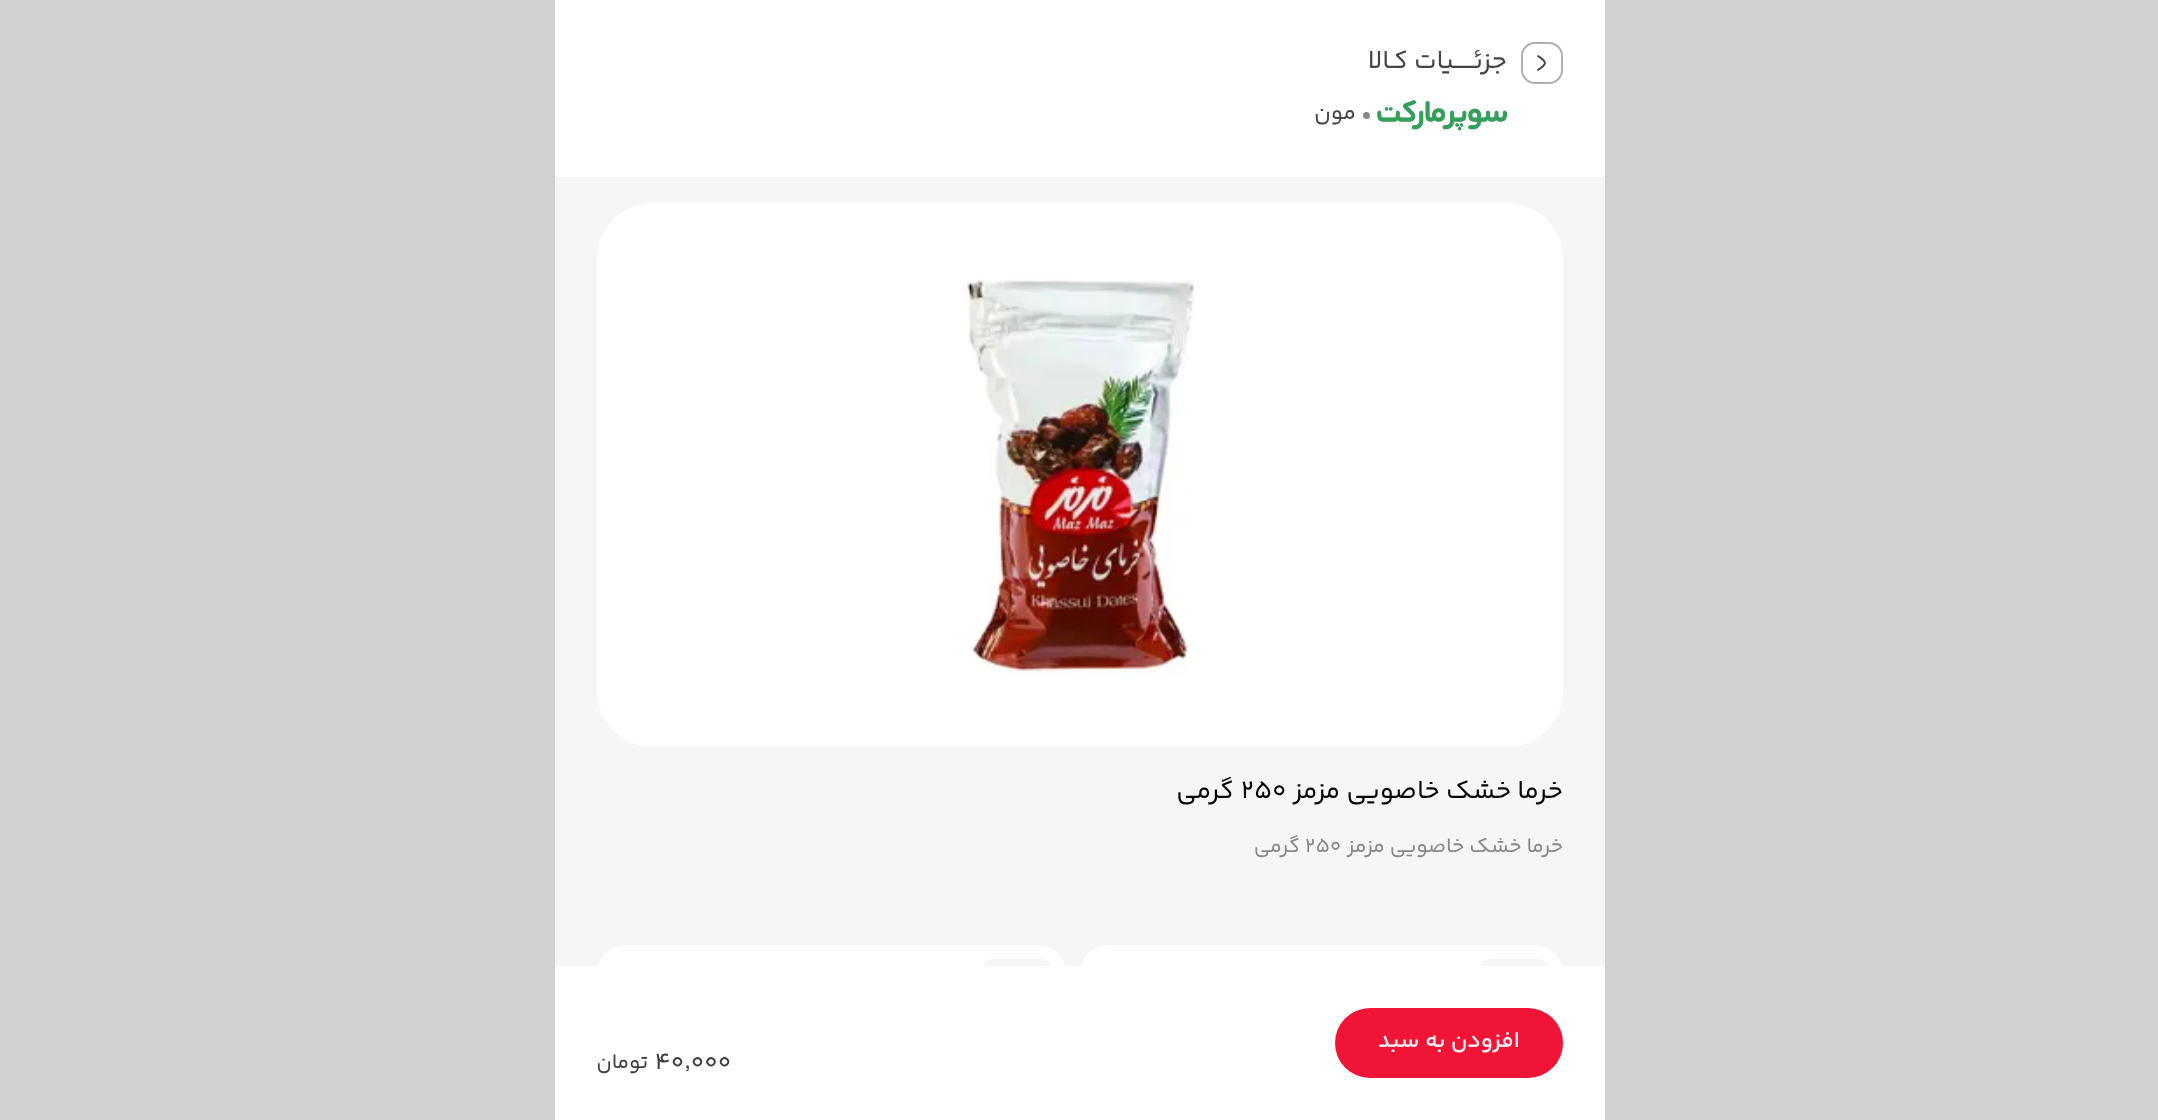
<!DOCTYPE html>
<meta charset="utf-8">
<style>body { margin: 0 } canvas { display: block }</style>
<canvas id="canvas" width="2158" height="1120"></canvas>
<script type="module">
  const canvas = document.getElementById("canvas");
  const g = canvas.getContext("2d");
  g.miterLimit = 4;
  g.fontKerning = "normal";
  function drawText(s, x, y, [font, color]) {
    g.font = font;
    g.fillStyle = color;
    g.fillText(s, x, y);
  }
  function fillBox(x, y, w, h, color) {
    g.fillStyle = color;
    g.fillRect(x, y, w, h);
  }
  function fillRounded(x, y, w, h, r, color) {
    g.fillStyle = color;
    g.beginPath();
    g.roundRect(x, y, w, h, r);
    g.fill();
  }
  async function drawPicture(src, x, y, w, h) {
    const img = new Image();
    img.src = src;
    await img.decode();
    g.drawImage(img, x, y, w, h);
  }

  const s1 = ["26.25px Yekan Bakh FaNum", "#454545"];
  const s2 = ["22.75px Yekan Bakh FaNum", "#454545"];
  const s3 = ["26.25px Yekan Bakh FaNum", "#060606"];
  const s4 = ["21px Yekan Bakh FaNum", "#888888"];
  const s5 = ["600 22.75px Yekan Bakh FaNum", "#FAECEE"];
  const s6 = ["24.5px Yekan Bakh FaNum", "#3D3D3D"];
  const s7 = ["21px Yekan Bakh FaNum", "#3D3D3D"];

  fillBox(0, 0, 2158, 1120, "#D1D1D1");
  fillBox(555, 177, 1050, 789, "#F6F6F6");
  fillBox(555, 0, 1050, 177, "#FFFFFF");
  g.beginPath();
  g.roundRect(1522, 43, 40, 40, 13);
  g.strokeStyle = "#B0B0B0";
  g.lineWidth = 2;
  g.stroke();
  await drawPicture("pic1.png", 1537, 55, 9, 16);
  g.direction = "rtl";
  drawText("جزئـــــیات کـالا", 1507, 68, s1);
  await drawPicture("pic2.png", 1377, 100, 130, 31);
  g.fillStyle = "#888888";
  g.beginPath();
  g.arc(1366.5, 115.5, 3.5, 0, Math.PI * 2);
  g.fill();
  drawText("مون", 1356, 119, s2);
  fillRounded(597, 203, 966, 544, 56, "#FFFFFF");
  await drawPicture("pic3.png", 961, 279, 233, 398);
  drawText("خرما خشک خاصویی مزمز", 1563, 798, s3);
  g.direction = "ltr";
  drawText("250", 1241, 798, s3);
  g.direction = "rtl";
  drawText("گرمی", 1234, 798, s3);
  drawText("خرما خشک خاصویی مزمز", 1563, 852, s4);
  g.direction = "ltr";
  drawText("250", 1305, 852, s4);
  g.direction = "rtl";
  drawText("گرمی", 1300, 852, s4);
  fillRounded(1080, 945, 483, 98, 28, "#FFFFFF");
  fillRounded(1479, 959, 70, 70, 11, "#F6F6F6");
  fillRounded(597, 945, 469, 98, 28, "#FFFFFF");
  fillRounded(982, 959, 70, 70, 11, "#F6F6F6");
  fillBox(555, 966, 1050, 154, "#FFFFFF");
  fillRounded(1335, 1008, 228, 70, 35, "#F01436");
  drawText("افزودن به سبد", 1520, 1047, s5);
  g.letterSpacing = "-0.5px";
  g.direction = "ltr";
  drawText("۴۰٬۰۰۰", 655, 1069, s6);
  g.letterSpacing = "0px";
  g.direction = "rtl";
  drawText("تومان", 648, 1068, s7);
</script>
